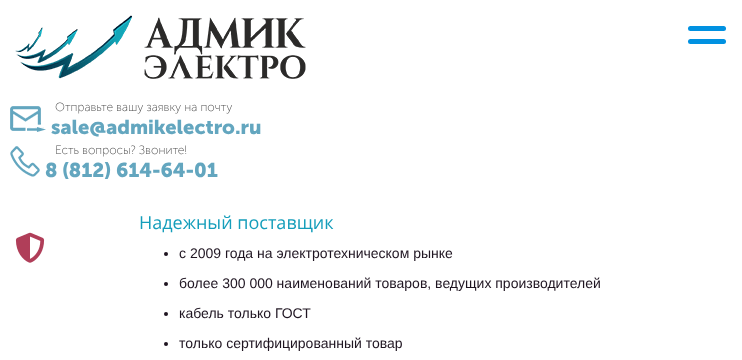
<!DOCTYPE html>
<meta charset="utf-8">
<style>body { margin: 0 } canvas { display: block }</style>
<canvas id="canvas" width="742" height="360"></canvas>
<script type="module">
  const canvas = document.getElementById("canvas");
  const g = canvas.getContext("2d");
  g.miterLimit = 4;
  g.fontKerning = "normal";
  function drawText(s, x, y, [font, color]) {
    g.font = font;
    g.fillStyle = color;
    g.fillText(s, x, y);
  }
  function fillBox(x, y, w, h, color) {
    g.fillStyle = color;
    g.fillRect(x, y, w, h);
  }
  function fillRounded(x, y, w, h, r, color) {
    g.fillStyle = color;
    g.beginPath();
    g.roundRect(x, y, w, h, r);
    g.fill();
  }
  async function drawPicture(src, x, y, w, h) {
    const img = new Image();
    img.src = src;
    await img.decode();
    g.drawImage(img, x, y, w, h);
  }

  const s1 = ["200 12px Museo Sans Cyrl", "#4C4C4C"];
  const s2 = ["bold 20px Museo Sans Cyrl", "#63A6BF"];
  const s3 = ["18px Open Sans", "#159EBB"];
  const s4 = ["14px Liberation Sans", "#1F1521"];

  fillBox(0, 0, 742, 360, "#FFFFFF");
  fillRounded(688, 26, 38, 5, 2.5, "#0091E1");
  fillRounded(688, 39, 38, 5, 2.5, "#0091E1");
  await drawPicture("pic1.png", 15, 15, 291, 64);
  drawText("Отправьте вашу заявку на почту", 55, 111, s1);
  await drawPicture("pic2.png", 10, 106, 36, 26);
  drawText("sale@admikelectro.ru", 51, 134, s2);
  drawText("Есть вопросы? Звоните!", 55, 154, s1);
  await drawPicture("pic3.png", 10, 146, 30, 31);
  drawText("8 (812) 614-64-01", 45, 177, s2);
  await drawPicture("pic4.png", 15, 232, 30, 31);
  drawText("Надежный поставщик", 139, 229, s3);
  g.fillStyle = "#1F1521";
  g.beginPath();
  g.arc(166, 254, 2, 0, Math.PI * 2);
  g.fill();
  drawText("с 2009 года на электротехническом рынке", 179, 258, s4);
  g.beginPath();
  g.arc(166, 284, 2, 0, Math.PI * 2);
  g.fill();
  drawText("более 300 000 наименований товаров, ведущих производителей", 179, 288, s4);
  g.beginPath();
  g.arc(166, 314, 2, 0, Math.PI * 2);
  g.fill();
  drawText("кабель только ГОСТ", 179, 318, s4);
  g.beginPath();
  g.arc(166, 344, 2, 0, Math.PI * 2);
  g.fill();
  drawText("только сертифицированный товар", 179, 348, s4);
</script>
